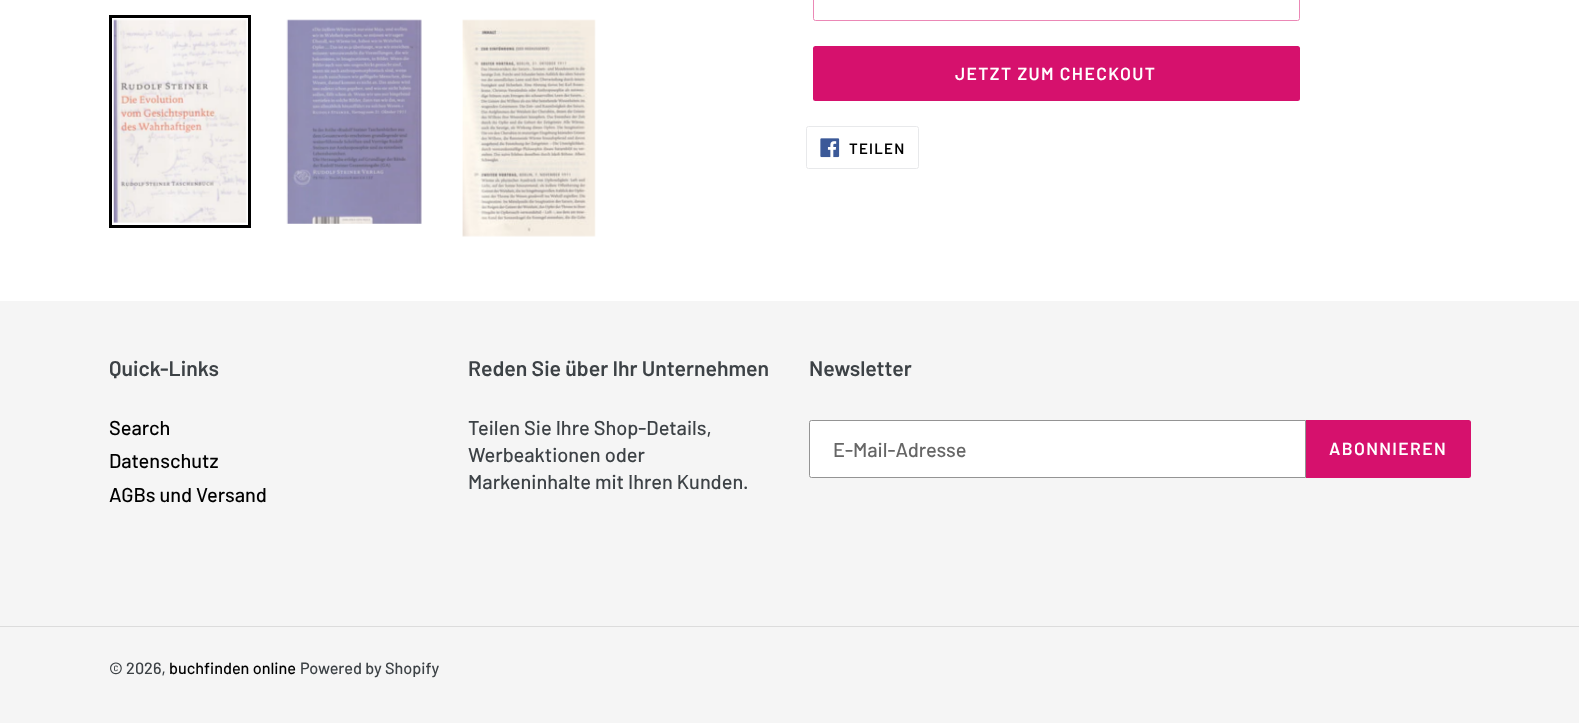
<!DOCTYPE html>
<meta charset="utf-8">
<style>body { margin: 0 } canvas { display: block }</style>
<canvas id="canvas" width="1579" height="723"></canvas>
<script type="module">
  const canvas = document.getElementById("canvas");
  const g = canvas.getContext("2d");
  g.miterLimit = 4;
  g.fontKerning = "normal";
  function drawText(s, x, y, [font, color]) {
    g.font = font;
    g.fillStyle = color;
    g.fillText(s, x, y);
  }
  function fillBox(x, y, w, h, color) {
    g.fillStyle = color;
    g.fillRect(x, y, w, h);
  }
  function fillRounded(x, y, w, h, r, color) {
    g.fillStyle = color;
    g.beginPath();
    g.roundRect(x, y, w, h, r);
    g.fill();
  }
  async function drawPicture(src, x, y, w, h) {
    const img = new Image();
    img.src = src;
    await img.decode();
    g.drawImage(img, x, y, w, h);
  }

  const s1 = ["600 17.5px Barlow", "#FFFFFF"];
  const s2 = ["600 15px Barlow", "#000000"];
  const s3 = ["600 21.25px Barlow", "#3D4246"];
  const s4 = ["500 20px Barlow", "#000000"];
  const s5 = ["500 20px Barlow", "#3D4246"];
  const s6 = ["500 20px Barlow", "#666666"];
  const s7 = ["500 16.25px Barlow", "#3D4246"];
  const s8 = ["500 16.25px Barlow", "#000000"];

  fillBox(0, 0, 1579, 723, "#FFFFFF");
  g.strokeStyle = "#000000";
  g.lineWidth = 3;
  g.strokeRect(110.5, 16.5, 139, 210);
  await drawPicture("pic1.png", 113, 19, 134, 204);
  await drawPicture("pic2.png", 286, 19, 136, 205);
  await drawPicture("pic3.png", 462, 19, 134, 218);
  g.beginPath();
  g.roundRect(813.5, -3.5, 486, 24, 2);
  g.strokeStyle = "#EB88B6";
  g.lineWidth = 1;
  g.stroke();
  fillRounded(813, 46, 487, 55, 2.5, "#D6116D");
  g.letterSpacing = "1.4px";
  drawText("JETZT ZUM CHECKOUT", 955, 80, s1);
  g.beginPath();
  g.roundRect(806.5, 126.5, 112, 42, 2);
  g.strokeStyle = "#E8E9EB";
  g.stroke();
  await drawPicture("pic4.png", 820, 138, 20, 20);
  g.letterSpacing = "1.25px";
  drawText("TEILEN", 849, 154, s2);
  fillBox(0, 301, 1579, 422, "#F5F5F5");
  g.letterSpacing = "0px";
  drawText("Quick-Links", 109, 376, s3);
  drawText("Search", 109, 435, s4);
  drawText("Datenschutz", 109, 468, s4);
  drawText("AGBs und Versand", 109, 502, s4);
  drawText("Reden Sie über Ihr Unternehmen", 468, 376, s3);
  drawText("Teilen Sie Ihre Shop-Details,", 468, 435, s5);
  drawText("Werbeaktionen oder", 468, 462, s5);
  drawText("Markeninhalte mit Ihren Kunden.", 468, 489, s5);
  drawText("Newsletter", 809, 376, s3);
  g.fillStyle = "#FFFFFF";
  g.beginPath();
  g.roundRect(809.5, 420.5, 496, 57, [2, 0, 0, 2]);
  g.fill();
  g.strokeStyle = "#949494";
  g.stroke();
  drawText("E-Mail-Adresse", 833, 457, s6);
  g.fillStyle = "#D6116D";
  g.beginPath();
  g.roundRect(1306, 420, 165, 58, [0, 2.5, 2.5, 0]);
  g.fill();
  g.letterSpacing = "1.4px";
  drawText("ABONNIEREN", 1329, 455, s1);
  fillBox(0, 626, 1579, 1, "#DCDCDC");
  g.letterSpacing = "0px";
  drawText("© 2026,", 109, 674, s7);
  drawText("buchfinden online", 169, 674, s8);
  drawText("Powered by Shopify", 300, 674, s7);
</script>
